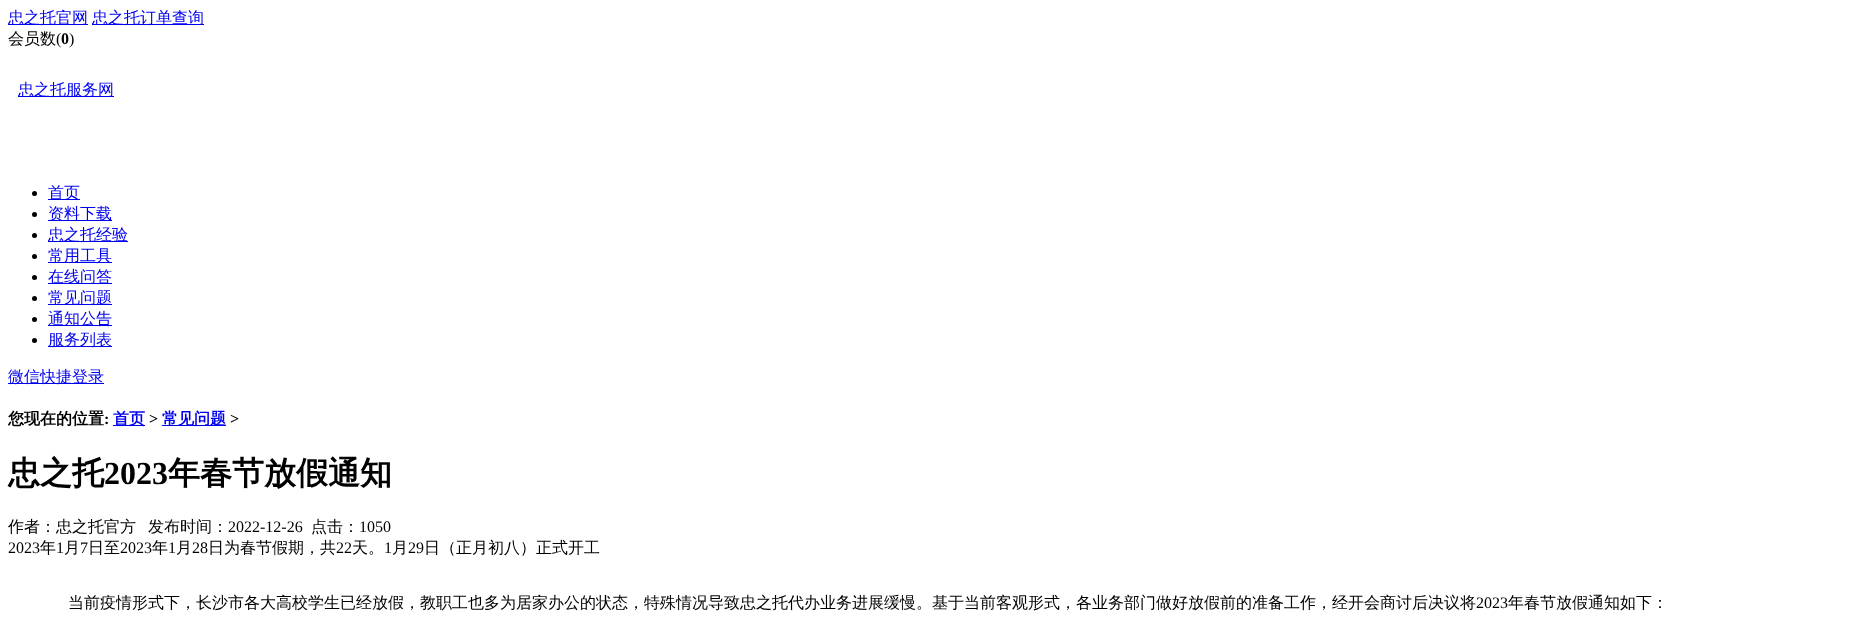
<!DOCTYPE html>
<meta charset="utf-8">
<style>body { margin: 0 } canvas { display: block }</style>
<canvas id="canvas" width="1850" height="630"></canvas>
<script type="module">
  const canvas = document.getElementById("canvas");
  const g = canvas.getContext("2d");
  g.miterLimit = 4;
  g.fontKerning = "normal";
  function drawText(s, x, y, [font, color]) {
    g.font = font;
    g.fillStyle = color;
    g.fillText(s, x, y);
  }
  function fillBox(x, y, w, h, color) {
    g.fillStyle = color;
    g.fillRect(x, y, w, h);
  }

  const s1 = ["500 16px WenQuanYi Zen Hei", "#0000EE"];
  const s2 = ["500 16px WenQuanYi Zen Hei", "#000000"];
  const s3 = ["16px Liberation Serif", "#000000"];
  const s4 = ["bold 16px Liberation Serif", "#000000"];
  const s5 = ["bold 16px WenQuanYi Zen Hei", "#000000"];
  const s6 = ["bold 16px WenQuanYi Zen Hei", "#0000EE"];
  const s7 = ["bold 32px WenQuanYi Zen Hei", "#000000"];
  const s8 = ["bold 32px Liberation Serif", "#000000"];

  fillBox(0, 0, 1850, 630, "#FFFFFF");
  fillBox(8, 24, 80, 1, "#0000EE");
  drawText("忠之托官网", 8, 23, s1);
  fillBox(92, 24, 112, 1, "#0000EE");
  drawText("忠之托订单查询", 92, 23, s1);
  drawText("会员数", 8, 44, s2);
  drawText("(", 56, 44, s3);
  drawText("0", 61, 44, s4);
  drawText(")", 69, 44, s3);
  fillBox(18, 96, 96, 1, "#0000EE");
  drawText("忠之托服务网", 18, 95, s1);
  g.fillStyle = "#000000";
  g.beginPath();
  g.arc(34.5, 193.5, 2.5, 0, Math.PI * 2);
  g.fill();
  fillBox(48, 199, 32, 1, "#0000EE");
  drawText("首页", 48, 198, s1);
  g.fillStyle = "#000000";
  g.beginPath();
  g.arc(34.5, 214.5, 2.5, 0, Math.PI * 2);
  g.fill();
  fillBox(48, 220, 64, 1, "#0000EE");
  drawText("资料下载", 48, 219, s1);
  g.fillStyle = "#000000";
  g.beginPath();
  g.arc(34.5, 235.5, 2.5, 0, Math.PI * 2);
  g.fill();
  fillBox(48, 241, 80, 1, "#0000EE");
  drawText("忠之托经验", 48, 240, s1);
  g.fillStyle = "#000000";
  g.beginPath();
  g.arc(34.5, 256.5, 2.5, 0, Math.PI * 2);
  g.fill();
  fillBox(48, 262, 64, 1, "#0000EE");
  drawText("常用工具", 48, 261, s1);
  g.fillStyle = "#000000";
  g.beginPath();
  g.arc(34.5, 277.5, 2.5, 0, Math.PI * 2);
  g.fill();
  fillBox(48, 283, 64, 1, "#0000EE");
  drawText("在线问答", 48, 282, s1);
  g.fillStyle = "#000000";
  g.beginPath();
  g.arc(34.5, 298.5, 2.5, 0, Math.PI * 2);
  g.fill();
  fillBox(48, 304, 64, 1, "#0000EE");
  drawText("常见问题", 48, 303, s1);
  g.fillStyle = "#000000";
  g.beginPath();
  g.arc(34.5, 319.5, 2.5, 0, Math.PI * 2);
  g.fill();
  fillBox(48, 325, 64, 1, "#0000EE");
  drawText("通知公告", 48, 324, s1);
  g.fillStyle = "#000000";
  g.beginPath();
  g.arc(34.5, 340.5, 2.5, 0, Math.PI * 2);
  g.fill();
  fillBox(48, 346, 64, 1, "#0000EE");
  drawText("服务列表", 48, 345, s1);
  fillBox(8, 383, 96, 1, "#0000EE");
  drawText("微信快捷登录", 8, 382, s1);
  drawText("您现在的位置", 8, 424, s5);
  drawText(":", 104, 424, s4);
  fillBox(113, 425, 32, 1, "#0000EE");
  drawText("首页", 113, 424, s6);
  drawText(">", 149, 424, s4);
  fillBox(162, 425, 64, 1, "#0000EE");
  drawText("常见问题", 162, 424, s6);
  drawText(">", 230, 424, s4);
  drawText("忠之托", 8, 484, s7);
  drawText("2023", 104, 484, s8);
  drawText("年春节放假通知", 168, 484, s7);
  drawText("作者：忠之托官方", 8, 532, s2);
  drawText("发布时间：", 148, 532, s2);
  drawText("2022-12-26", 228, 532, s3);
  drawText("点击：", 311, 532, s2);
  drawText("1050", 359, 532, s3);
  drawText("2023", 8, 553, s3);
  drawText("年", 40, 553, s2);
  drawText("1", 56, 553, s3);
  drawText("月", 64, 553, s2);
  drawText("7", 80, 553, s3);
  drawText("日至", 88, 553, s2);
  drawText("2023", 120, 553, s3);
  drawText("年", 152, 553, s2);
  drawText("1", 168, 553, s3);
  drawText("月", 176, 553, s2);
  drawText("28", 192, 553, s3);
  drawText("日为春节假期，共", 208, 553, s2);
  drawText("22", 336, 553, s3);
  drawText("天。", 352, 553, s2);
  drawText("1", 384, 553, s3);
  drawText("月", 392, 553, s2);
  drawText("29", 408, 553, s3);
  drawText("日（正月初八）正式开工", 424, 553, s2);
  drawText("当前疫情形式下，长沙市各大高校学生已经放假，教职工也多为居家办公的状态，特殊情况导致忠之托代办业务进展缓慢。基于当前客观形式，各业务部门做好放假前的准备工作，经开会商讨后决议将", 68, 608, s2);
  drawText("2023", 1476, 608, s3);
  drawText("年春节放假通知如下：", 1508, 608, s2);
</script>
